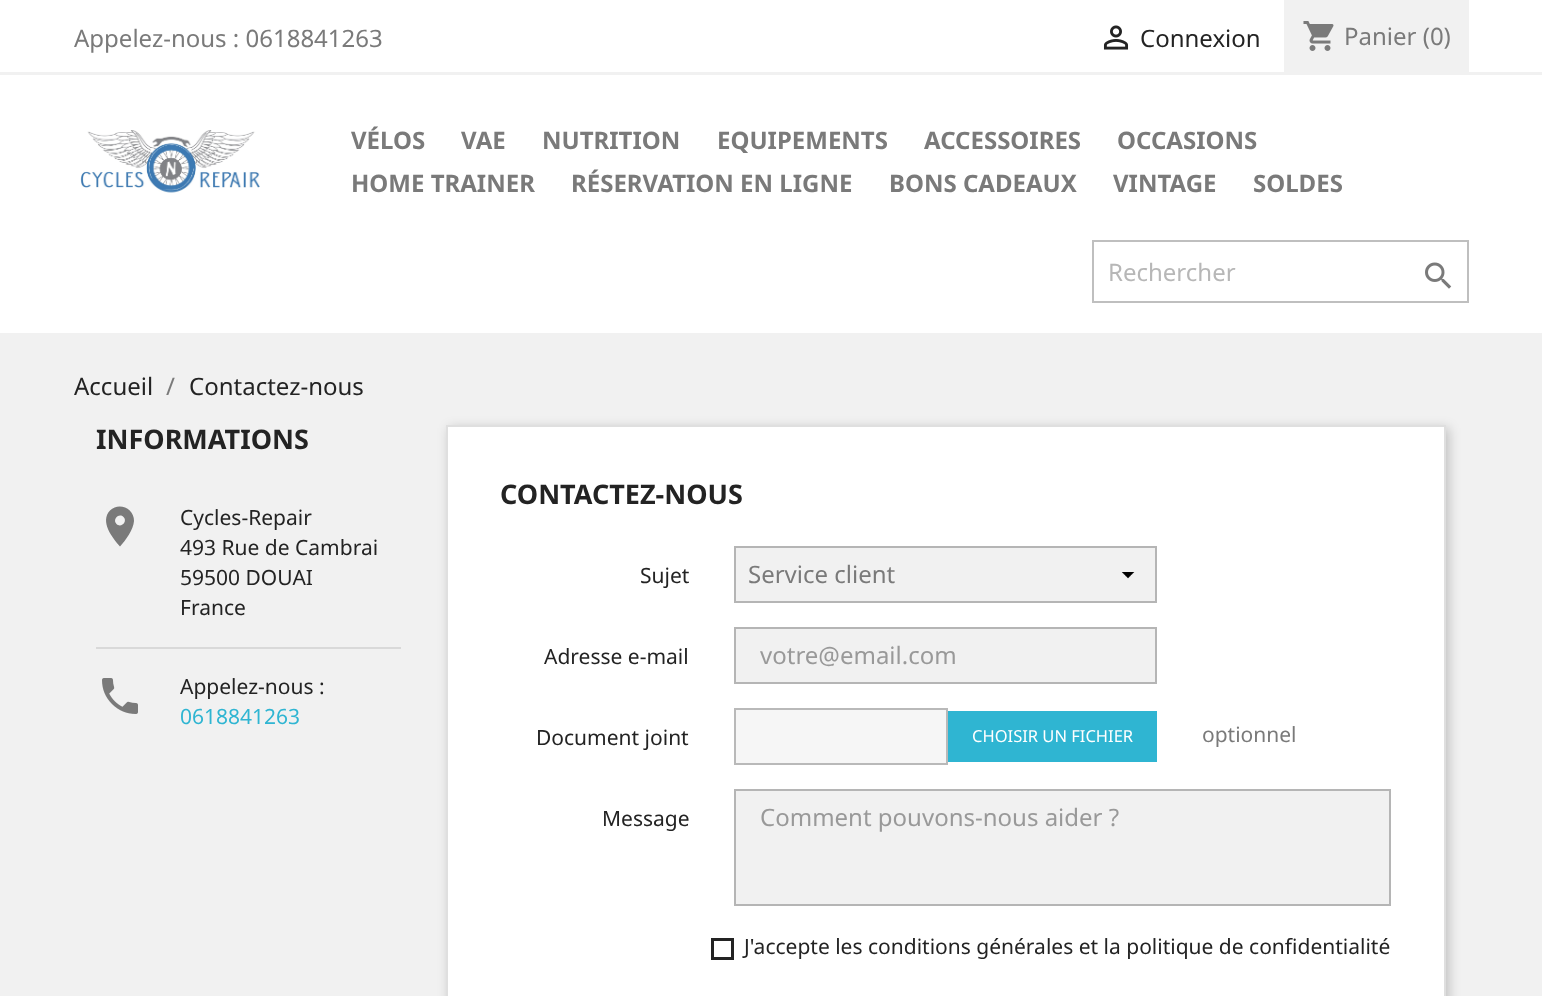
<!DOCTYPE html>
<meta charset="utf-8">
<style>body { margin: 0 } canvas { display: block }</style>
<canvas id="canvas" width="1542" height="996"></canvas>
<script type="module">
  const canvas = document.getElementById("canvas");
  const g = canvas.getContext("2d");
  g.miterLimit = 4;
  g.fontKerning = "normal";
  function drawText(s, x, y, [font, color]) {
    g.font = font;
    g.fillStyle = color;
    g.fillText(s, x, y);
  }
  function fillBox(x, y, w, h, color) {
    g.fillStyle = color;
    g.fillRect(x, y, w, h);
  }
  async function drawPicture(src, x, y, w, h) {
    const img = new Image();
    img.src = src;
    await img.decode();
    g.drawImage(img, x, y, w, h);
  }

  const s1 = ["24px Noto Sans", "#7A7A7A"];
  const s2 = ["24px Noto Sans", "#232323"];
  const s3 = ["bold 24px Noto Sans", "#7A7A7A"];
  const s4 = ["24px Noto Sans", "#B7B7B7"];
  const s5 = ["bold 27px Noto Sans", "#232323"];
  const s6 = ["21px Noto Sans", "#232323"];
  const s7 = ["21px Noto Sans", "#2FB5D2"];
  const s8 = ["24px Noto Sans", "#999999"];
  const s9 = ["16.5px Noto Sans", "#FFFFFF"];
  const s10 = ["21px Noto Sans", "#7A7A7A"];

  fillBox(0, 0, 1542, 996, "#FFFFFF");
  fillBox(0, 72, 1542, 3, "#F1F1F1");
  drawText("Appelez-nous : 0618841263", 74, 47, s1);
  await drawPicture("pic1.png", 1103, 25, 26, 25);
  drawText("Connexion", 1140, 47, s2);
  fillBox(1284, 0, 185, 72, "#F1F1F1");
  await drawPicture("pic2.png", 1303, 21, 31, 30);
  drawText("Panier (0)", 1344, 45, s1);
  await drawPicture("pic3.png", 80, 130, 180, 63);
  drawText("VÉLOS", 351, 149, s3);
  drawText("VAE", 461, 149, s3);
  drawText("NUTRITION", 542, 149, s3);
  drawText("EQUIPEMENTS", 717, 149, s3);
  drawText("ACCESSOIRES", 924, 149, s3);
  drawText("OCCASIONS", 1117, 149, s3);
  drawText("HOME TRAINER", 351, 192, s3);
  drawText("RÉSERVATION EN LIGNE", 571, 192, s3);
  drawText("BONS CADEAUX", 889, 192, s3);
  drawText("VINTAGE", 1113, 192, s3);
  drawText("SOLDES", 1253, 192, s3);
  g.strokeStyle = "#BFBFBF";
  g.lineWidth = 2;
  g.strokeRect(1093, 241, 375, 61);
  drawText("Rechercher", 1108, 281, s4);
  await drawPicture("pic4.png", 1425, 262, 27, 27);
  fillBox(0, 333, 1542, 663, "#F1F1F1");
  drawText("Accueil", 74, 395, s2);
  drawText("/", 166, 395, s1);
  drawText("Contactez-nous", 189, 395, s2);
  drawText("INFORMATIONS", 96, 449, s5);
  g.fillStyle = "#7A7A7A";
  g.beginPath();
  g.moveTo(116.5, 524);
  g.bezierCurveTo(121, 528.5, 128, 521.5, 123.5, 517);
  g.bezierCurveTo(119, 512.5, 112, 519.5, 116.5, 524);
  g.closePath();
  g.moveTo(110, 510.5);
  g.bezierCurveTo(119, 501.5, 134.5, 508.5, 134, 521);
  g.bezierCurveTo(133.5, 529.5, 125.5, 540.5, 120, 546.5);
  g.bezierCurveTo(112.5, 538, 99.5, 521.5, 110, 510.5);
  g.closePath();
  g.fill();
  drawText("Cycles-Repair", 180, 525, s6);
  drawText("493 Rue de Cambrai", 180, 555, s6);
  drawText("59500 DOUAI", 180, 585, s6);
  drawText("France", 180, 615, s6);
  fillBox(96, 647, 305, 2, "#D9D9D9");
  await drawPicture("pic5.png", 102, 678, 36, 36);
  drawText("Appelez-nous :", 180, 694, s6);
  drawText("0618841263", 180, 724, s7);
  g.fillStyle = "rgba(0, 0, 0, 0.2)";
  g.filter = "blur(6px)";
  g.beginPath();
  g.rect(449, 428, 1000, 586);
  g.fill();
  g.filter = "none";
  g.fillStyle = "#FFFFFF";
  g.beginPath();
  g.rect(447, 426, 998, 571);
  g.fill();
  g.strokeStyle = "#DFDFDF";
  g.stroke();
  drawText("CONTACTEZ-NOUS", 500, 504, s5);
  drawText("Sujet", 640, 583, s6);
  fillBox(736, 548, 419, 53, "#F1F1F1");
  await drawPicture("pic6.png", 1121, 572, 14, 7);
  g.strokeStyle = "#B5B5B5";
  g.strokeRect(735, 547, 421, 55);
  drawText("Service client", 748, 583, s1);
  drawText("Adresse e-mail", 544, 664, s6);
  g.fillStyle = "#F1F1F1";
  g.beginPath();
  g.rect(735, 628, 421, 55);
  g.fill();
  g.stroke();
  drawText("votre@email.com", 760, 664, s8);
  drawText("Document joint", 536, 745, s6);
  g.fillStyle = "#F6F6F6";
  g.beginPath();
  g.rect(735, 709, 212, 55);
  g.fill();
  g.strokeStyle = "#B9B9B9";
  g.stroke();
  fillBox(948, 711, 209, 51, "#2FB5D2");
  drawText("CHOISIR UN FICHIER", 972, 742, s9);
  drawText("optionnel", 1202, 742, s10);
  drawText("Message", 602, 826, s6);
  g.fillStyle = "#F1F1F1";
  g.beginPath();
  g.rect(735, 790, 655, 115);
  g.fill();
  g.strokeStyle = "#B5B5B5";
  g.stroke();
  drawText("Comment pouvons-nous aider ?", 760, 826, s8);
  g.strokeStyle = "#232323";
  g.lineWidth = 3;
  g.strokeRect(712.5, 939.5, 20, 19);
  drawText("J'accepte les conditions générales et la politique de confidentialité", 744, 954, s6);
</script>
